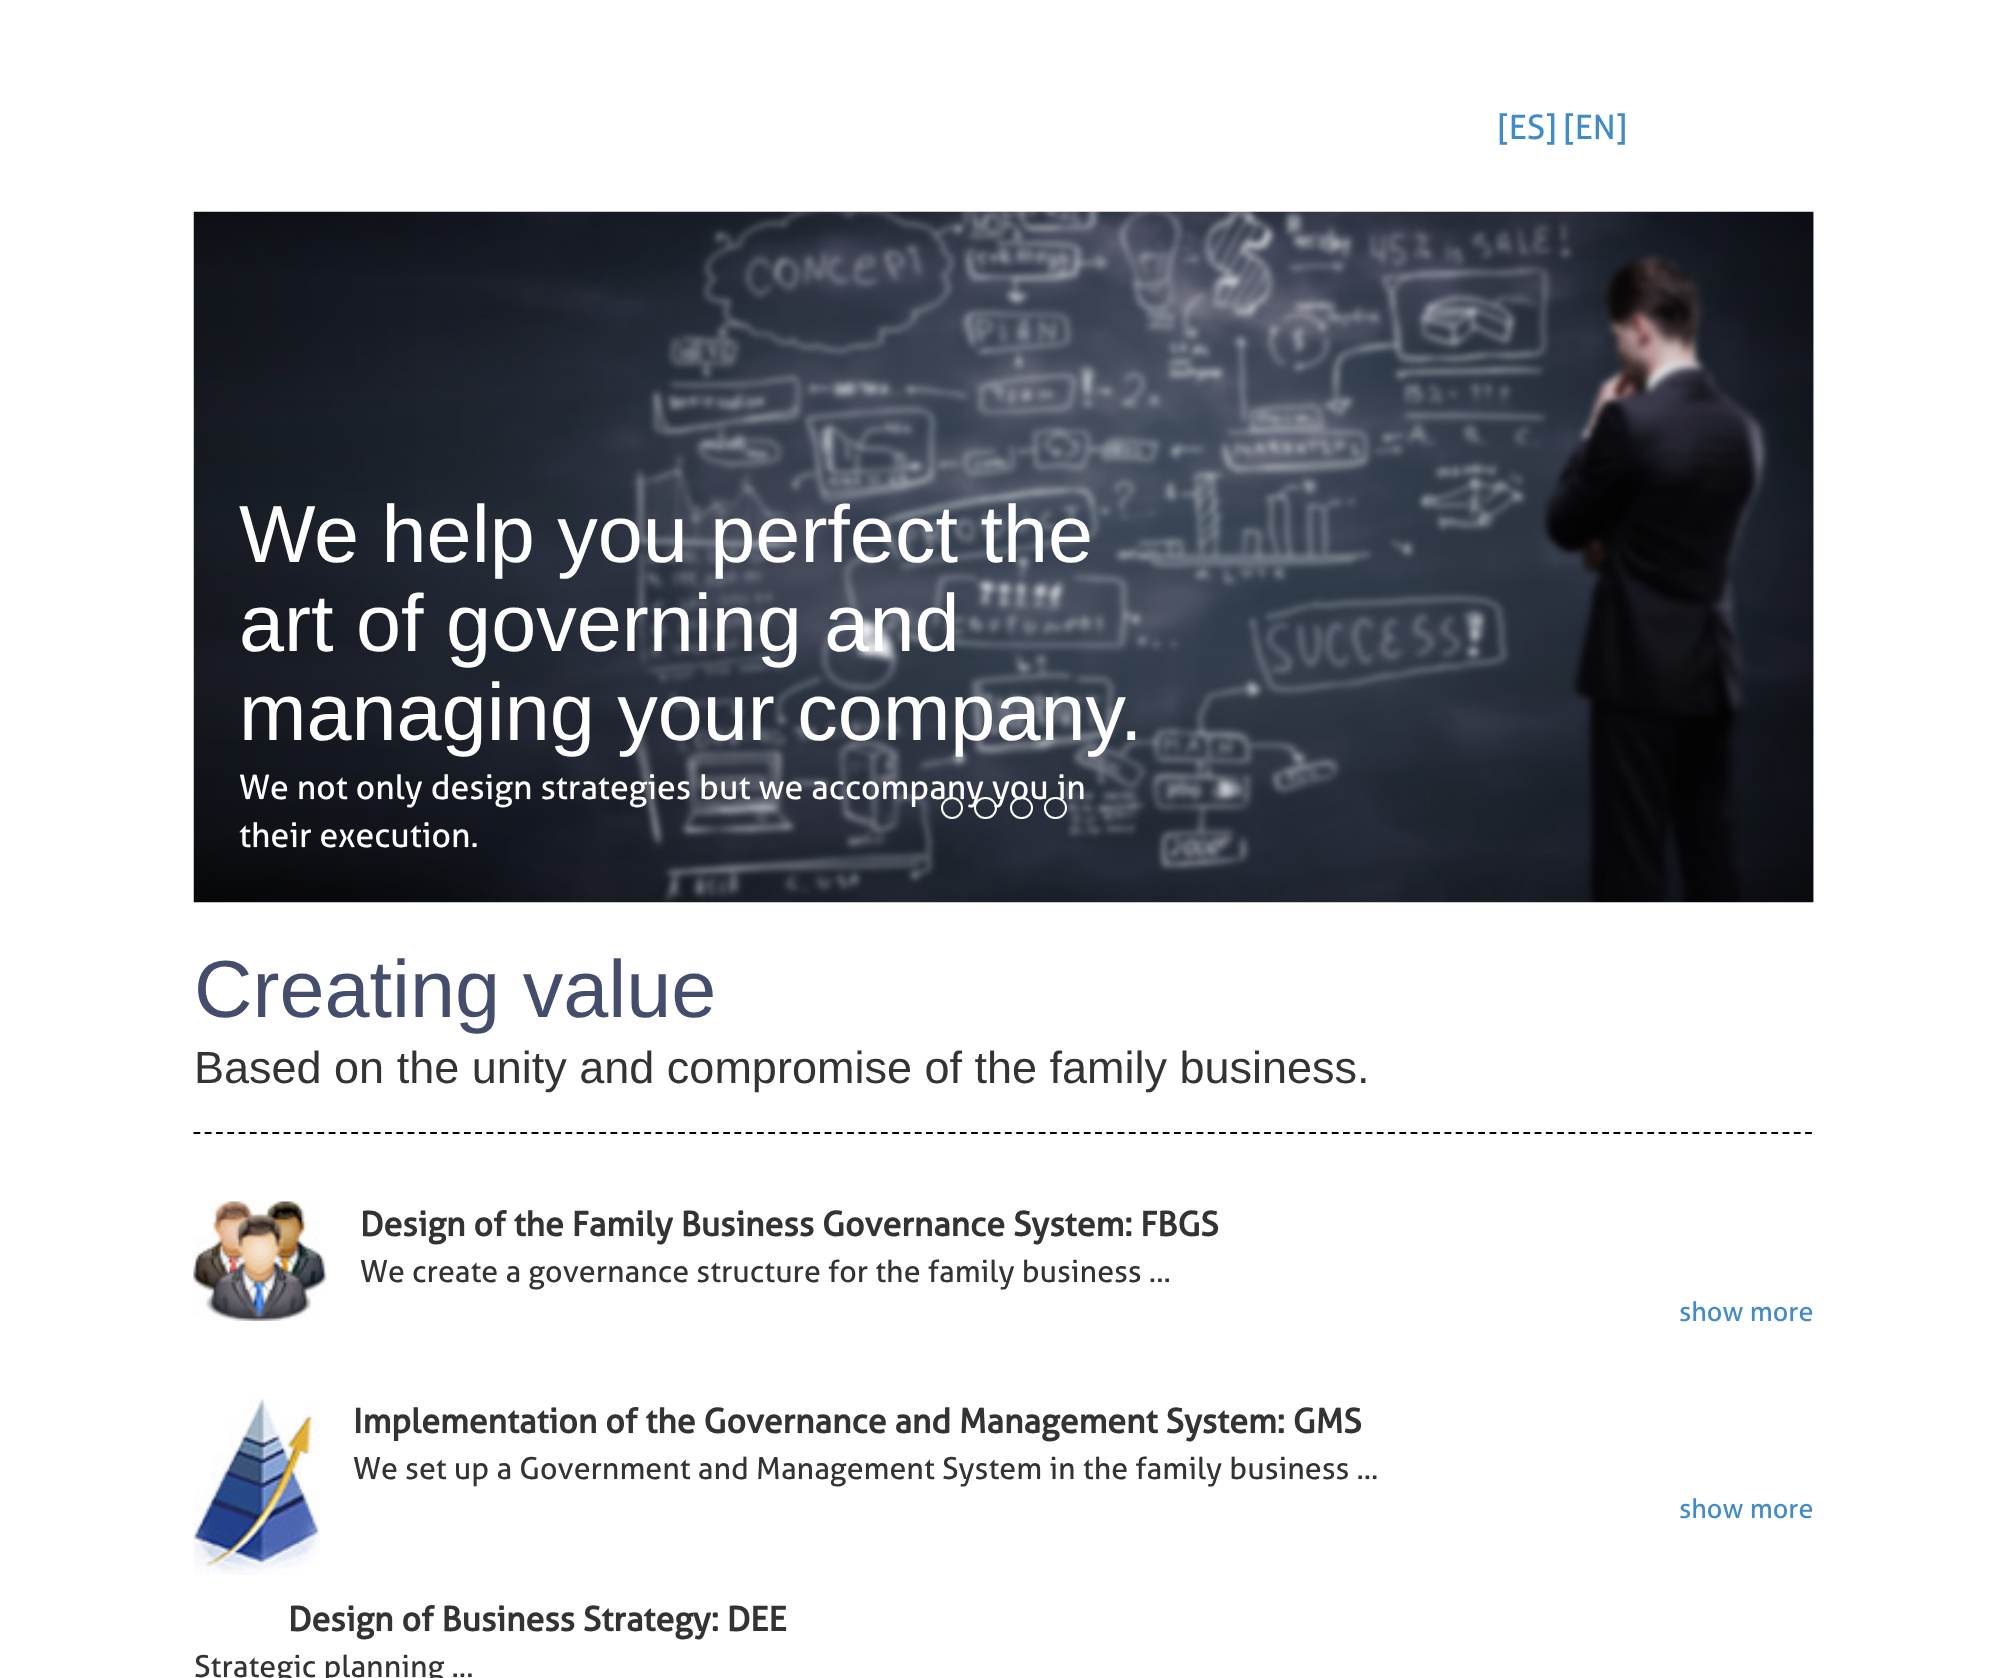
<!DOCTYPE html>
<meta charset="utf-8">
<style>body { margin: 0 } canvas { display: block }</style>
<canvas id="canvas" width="2005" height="1678"></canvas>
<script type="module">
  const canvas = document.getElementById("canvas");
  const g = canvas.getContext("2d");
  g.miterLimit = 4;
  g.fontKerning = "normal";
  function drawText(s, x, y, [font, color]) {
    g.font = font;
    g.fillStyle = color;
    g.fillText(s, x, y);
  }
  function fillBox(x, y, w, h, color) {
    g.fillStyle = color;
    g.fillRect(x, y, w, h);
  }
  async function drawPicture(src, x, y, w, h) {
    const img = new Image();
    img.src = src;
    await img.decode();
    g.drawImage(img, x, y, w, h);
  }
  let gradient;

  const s1 = ["33.75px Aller", "#428BCA"];
  const s2 = ["81px Liberation Sans", "#FFFFFF"];
  const s3 = ["33.75px Aller", "#FFFFFF"];
  const s4 = ["81px Liberation Sans", "#444D6C"];
  const s5 = ["45px Liberation Sans", "#333333"];
  const s6 = ["bold 33.75px Aller", "#333333"];
  const s7 = ["30.4px Aller", "#333333"];
  const s8 = ["27px Aller", "#428BCA"];

  fillBox(0, 0, 2005, 1678, "#FFFFFF");
  drawText("[ES] [EN]", 1498, 139, s1);
  await drawPicture("pic1.png", 193, 211, 1621, 692);
  gradient = g.createLinearGradient(194, 557, 437, 557);
  gradient.addColorStop(0, "rgba(0, 0, 0, 0.25)");
  gradient.addColorStop(1, "rgba(0, 0, 0, 0)");
  g.fillStyle = gradient;
  g.fillRect(194, 212, 222, 687);
  gradient = g.createLinearGradient(1571, 557, 1814, 557);
  gradient.addColorStop(0, "rgba(0, 0, 0, 0)");
  gradient.addColorStop(1, "rgba(0, 0, 0, 0.25)");
  g.fillStyle = gradient;
  g.fillRect(1595, 212, 219, 690);
  drawText("We help you perfect the", 239, 562, s2);
  drawText("art of governing and", 239, 651, s2);
  drawText("managing your company.", 239, 740, s2);
  drawText("We not only design strategies but we accompany you in", 239, 799, s3);
  drawText("their execution.", 239, 847, s3);
  g.beginPath();
  g.arc(952, 808, 10, 0, Math.PI * 2);
  g.strokeStyle = "#FFFFFF";
  g.lineWidth = 2;
  g.stroke();
  g.beginPath();
  g.roundRect(975, 798, 21, 20, 10);
  g.stroke();
  g.beginPath();
  g.roundRect(1011, 798, 21, 20, 10);
  g.stroke();
  g.beginPath();
  g.roundRect(1045, 798, 21, 20, 10);
  g.stroke();
  g.beginPath();
  g.moveTo(193.5, 1133);
  g.lineTo(1813.5, 1133);
  g.strokeStyle = "#000000";
  g.lineWidth = 2.2;
  g.setLineDash([6.75, 4.52]);
  g.stroke();
  drawText("Creating value", 194, 1017, s4);
  drawText("Based on the unity and compromise of the family business.", 194, 1083, s5);
  await drawPicture("pic2.png", 193, 1201, 134, 120);
  drawText("Design of the Family Business Governance System: FBGS", 360, 1236, s6);
  drawText("We create a governance structure for the family business ...", 360, 1282, s7);
  drawText("show more", 1679, 1321, s8);
  await drawPicture("pic3.png", 193, 1399, 127, 176);
  drawText("Implementation of the Governance and Management System: GMS", 353, 1433, s6);
  drawText("We set up a Government and Management System in the family business ...", 353, 1479, s7);
  drawText("show more", 1679, 1518, s8);
  drawText("Design of Business Strategy: DEE", 288, 1631, s6);
  drawText("Strategic planning ...", 194, 1677, s7);
</script>
